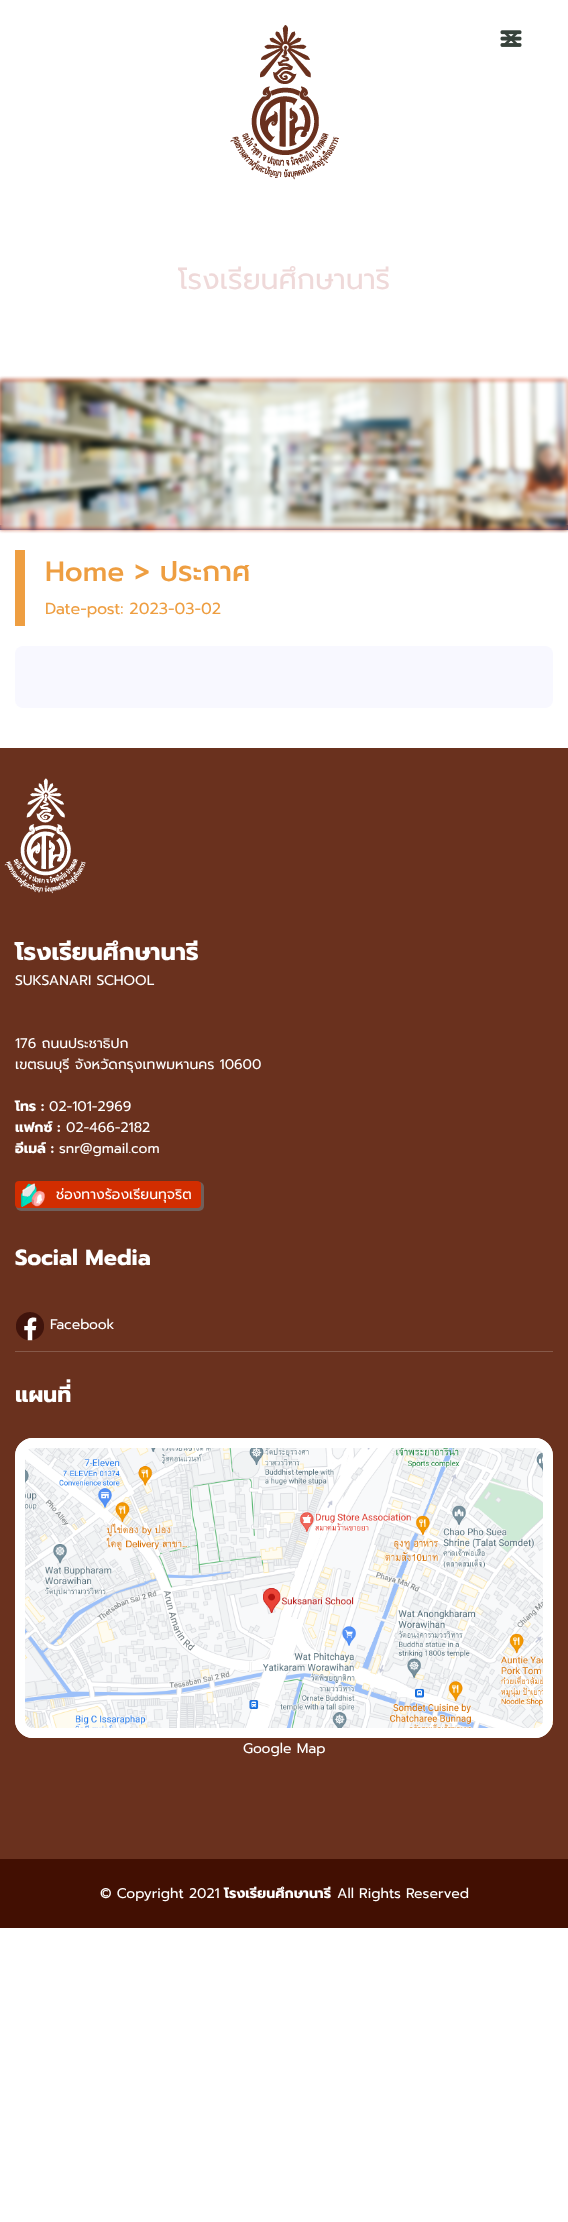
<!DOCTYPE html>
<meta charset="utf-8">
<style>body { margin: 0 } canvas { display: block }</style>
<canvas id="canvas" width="568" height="2222"></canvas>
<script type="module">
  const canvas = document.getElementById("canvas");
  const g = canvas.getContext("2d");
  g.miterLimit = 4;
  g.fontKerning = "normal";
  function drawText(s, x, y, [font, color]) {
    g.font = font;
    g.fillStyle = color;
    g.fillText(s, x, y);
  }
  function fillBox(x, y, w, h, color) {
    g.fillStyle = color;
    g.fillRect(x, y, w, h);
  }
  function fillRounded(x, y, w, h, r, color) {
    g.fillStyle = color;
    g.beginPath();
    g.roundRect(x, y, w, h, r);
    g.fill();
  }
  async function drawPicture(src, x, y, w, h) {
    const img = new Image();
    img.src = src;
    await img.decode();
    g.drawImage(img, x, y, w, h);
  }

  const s1 = ["28.5px Prompt", "#EFD9D9"];
  const s2 = ["500 28px Prompt", "#EE9E41"];
  const s3 = ["16px Prompt", "#EE9E41"];
  const s4 = ["bold 24px Prompt", "#FFFFFF"];
  const s5 = ["14px Prompt", "#FFFFFF"];
  const s6 = ["bold 14px Prompt", "#FFFFFF"];
  const s7 = ["bold 22px Prompt", "#FFFFFF"];

  fillBox(0, 0, 568, 2222, "#FFFFFF");
  await drawPicture("pic1.png", 500, 30, 22, 17);
  await drawPicture("pic2.png", 504, 34, 14, 10);
  await drawPicture("pic3.png", 230, 25, 109, 155);
  drawText("โรงเรียนศึกษานารี", 178, 289, s1);
  fillBox(0, 525, 568, 5, "#3A5896");
  g.fillStyle = "#D22D00";
  g.filter = "blur(2px)";
  g.beginPath();
  g.rect(0, 380, 568, 149);
  g.fill();
  g.filter = "none";
  await drawPicture("pic4.png", 0, 376, 568, 157);
  fillBox(15, 550, 10, 76, "#EE9E41");
  drawText("Home > ประกาศ", 45, 581, s2);
  drawText("Date-post: 2023-03-02", 45, 614, s3);
  fillRounded(15, 646, 538, 62, 8, "#F8F8FF");
  fillBox(0, 1859, 568, 69, "#420F02");
  fillBox(0, 748, 568, 1111, "#6A311E");
  await drawPicture("pic5.png", 4, 778, 82, 116);
  drawText("โรงเรียนศึกษานารี", 15, 960, s4);
  drawText("SUKSANARI SCHOOL", 15, 985, s5);
  drawText("176 ถนนประชาธิปก", 15, 1048, s5);
  drawText("เขตธนบุรี จังหวัดกรุงเทพมหานคร 10600", 15, 1069, s5);
  drawText("โทร :", 15, 1111, s6);
  drawText("02-101-2969", 49, 1111, s5);
  drawText("แฟกซ์ :", 15, 1132, s6);
  drawText("02-466-2182", 66, 1132, s5);
  drawText("อีเมล์ :", 15, 1153, s6);
  drawText("snr@gmail.com", 59, 1153, s5);
  g.fillStyle = "rgba(116, 116, 116, 0.7)";
  g.filter = "blur(0.5px)";
  g.beginPath();
  g.roundRect(16, 1182, 188, 29, 5);
  g.fill();
  g.filter = "none";
  fillRounded(15, 1181, 186, 27, 4, "#D22D00");
  await drawPicture("pic6.png", 21, 1183, 24, 24);
  drawText("ช่องทางร้องเรียนทุจริต", 56, 1199, s5);
  drawText("Social Media", 15, 1265, s7);
  fillBox(15, 1351, 538, 1, "#865949");
  await drawPicture("pic7.png", 16, 1312, 28, 29);
  drawText("Facebook", 50, 1329, s5);
  drawText("แผนที่", 15, 1402, s7);
  await drawPicture("pic8.png", 15, 1438, 538, 300);
  g.beginPath();
  g.roundRect(20, 1443, 528, 290, 13);
  g.strokeStyle = "#FFFFFF";
  g.lineWidth = 10;
  g.stroke();
  drawText("Google Map", 243, 1753, s5);
  drawText("© Copyright 2021", 100, 1898, s5);
  drawText("โรงเรียนศึกษานารี", 224, 1898, s6);
  drawText("All Rights Reserved", 337, 1898, s5);
</script>
